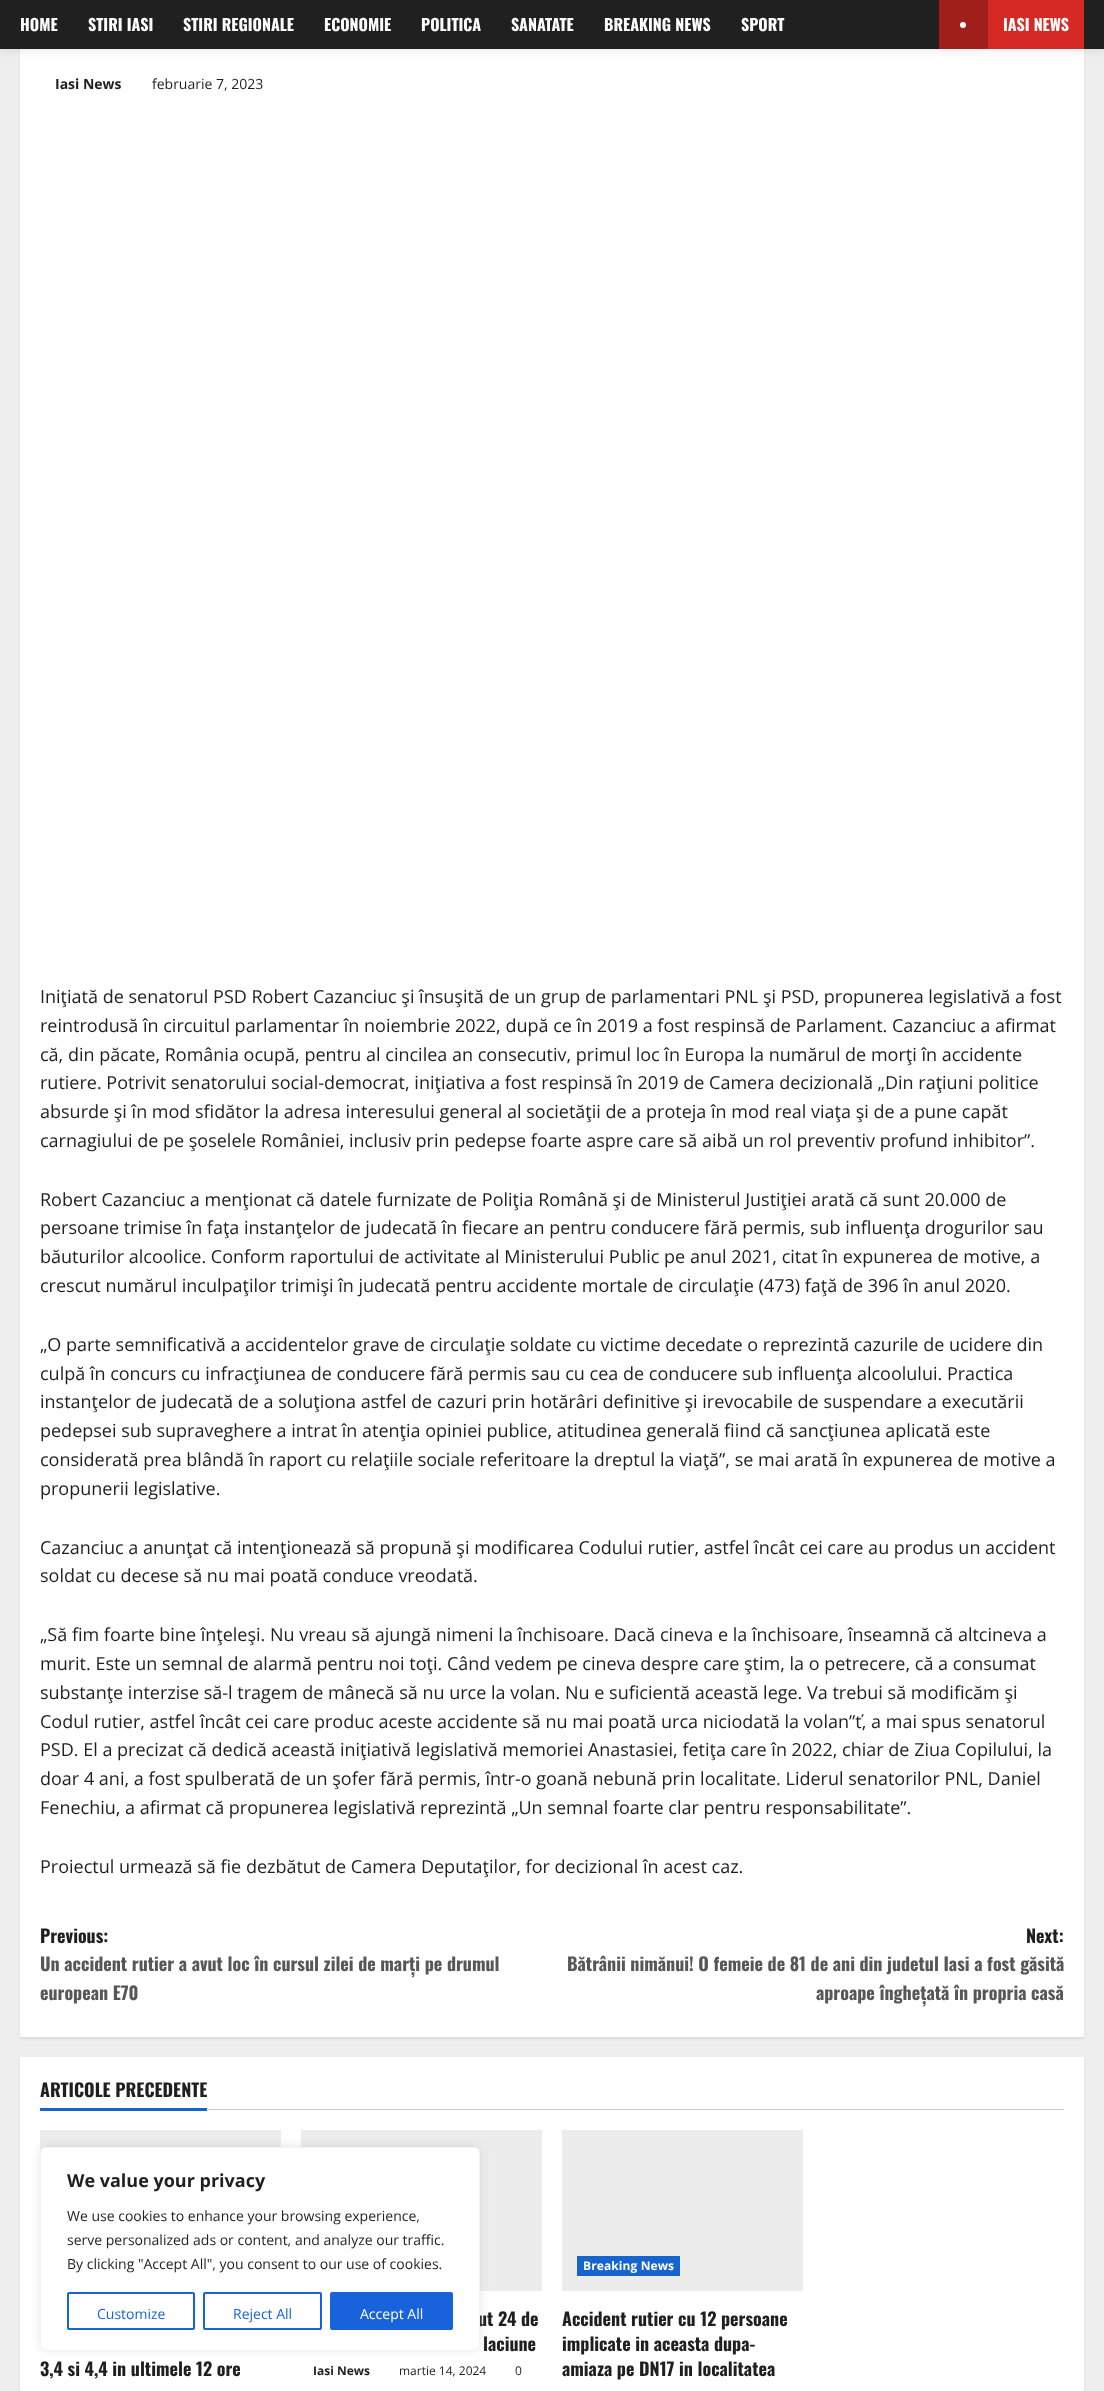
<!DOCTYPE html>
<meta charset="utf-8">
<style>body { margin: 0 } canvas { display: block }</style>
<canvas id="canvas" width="1104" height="2391"></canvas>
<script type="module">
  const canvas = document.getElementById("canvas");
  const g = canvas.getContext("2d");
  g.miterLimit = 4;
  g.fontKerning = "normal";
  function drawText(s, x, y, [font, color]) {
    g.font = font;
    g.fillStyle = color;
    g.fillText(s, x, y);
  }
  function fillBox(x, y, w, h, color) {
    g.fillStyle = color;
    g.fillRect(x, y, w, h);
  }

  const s1 = ["bold 16px Oswald", "#FFFFFF"];
  const s2 = ["bold 14px Open Sans", "#1F1F1F"];
  const s3 = ["14px Open Sans", "#1F1F1F"];
  const s4 = ["18px Open Sans", "#1F1F1F"];
  const s5 = ["bold 18px Oswald", "#1F1F1F"];
  const s6 = ["bold 18px Oswald", "#575757"];
  const s7 = ["bold 12px Open Sans", "#1F1F1F"];
  const s8 = ["12px Open Sans", "#1F1F1F"];
  const s9 = ["bold 12px Open Sans", "#FFFFFF"];
  const s10 = ["bold 18px Open Sans", "#1F1F1F"];
  const s11 = ["14px Open Sans", "#1863DC"];
  const s12 = ["14px Open Sans", "#FFFFFF"];

  fillBox(0, 0, 1104, 2391, "#EEEEEE");
  g.fillStyle = "rgba(0, 0, 0, 0.08)";
  g.filter = "blur(1px)";
  g.beginPath();
  g.rect(20, -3, 1064, 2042);
  g.fill();
  g.filter = "none";
  fillBox(20, 49, 1064, 1988, "#FFFFFF");
  g.fillStyle = "rgba(0, 0, 0, 0.08)";
  g.filter = "blur(4px)";
  g.beginPath();
  g.rect(0, 2, 1104, 49);
  g.fill();
  g.filter = "none";
  fillBox(0, 0, 1104, 49, "#202020");
  drawText("HOME", 20, 31, s1);
  drawText("STIRI IASI", 88, 31, s1);
  drawText("STIRI REGIONALE", 183, 31, s1);
  drawText("ECONOMIE", 324, 31, s1);
  drawText("POLITICA", 421, 31, s1);
  drawText("SANATATE", 511, 31, s1);
  drawText("BREAKING NEWS", 604, 31, s1);
  drawText("SPORT", 741, 31, s1);
  fillBox(988, 0, 96, 49, "#D72924");
  fillBox(939, 0, 49, 49, "#A11F1B");
  g.fillStyle = "#FFFFFF";
  g.beginPath();
  g.arc(963, 25, 3, 0, Math.PI * 2);
  g.fill();
  drawText("IASI NEWS", 1003, 31, s1);
  drawText("Iasi News", 55, 89, s2);
  drawText("februarie 7, 2023", 152, 89, s3);
  drawText("Iniţiată de senatorul PSD Robert Cazanciuc şi însuşită de un grup de parlamentari PNL şi PSD, propunerea legislativă a fost", 40, 1003, s4);
  drawText("reintrodusă în circuitul parlamentar în noiembrie 2022, după ce în 2019 a fost respinsă de Parlament. Cazanciuc a afirmat", 40, 1032, s4);
  drawText("că, din păcate, România ocupă, pentru al cincilea an consecutiv, primul loc în Europa la numărul de morţi în accidente", 40, 1061, s4);
  drawText("rutiere. Potrivit senatorului social-democrat, iniţiativa a fost respinsă în 2019 de Camera decizională „Din raţiuni politice", 40, 1089, s4);
  drawText("absurde şi în mod sfidător la adresa interesului general al societăţii de a proteja în mod real viaţa şi de a pune capăt", 40, 1118, s4);
  drawText("carnagiului de pe şoselele României, inclusiv prin pedepse foarte aspre care să aibă un rol preventiv profund inhibitor”.", 40, 1147, s4);
  drawText("Robert Cazanciuc a menţionat că datele furnizate de Poliţia Română şi de Ministerul Justiţiei arată că sunt 20.000 de", 40, 1206, s4);
  drawText("persoane trimise în faţa instanţelor de judecată în fiecare an pentru conducere fără permis, sub influenţa drogurilor sau", 40, 1234, s4);
  drawText("băuturilor alcoolice. Conform raportului de activitate al Ministerului Public pe anul 2021, citat în expunerea de motive, a", 40, 1263, s4);
  drawText("crescut numărul inculpaţilor trimişi în judecată pentru accidente mortale de circulaţie (473) faţă de 396 în anul 2020.", 40, 1292, s4);
  drawText("„O parte semnificativă a accidentelor grave de circulaţie soldate cu victime decedate o reprezintă cazurile de ucidere din", 40, 1351, s4);
  drawText("culpă în concurs cu infracţiunea de conducere fără permis sau cu cea de conducere sub influenţa alcoolului. Practica", 40, 1380, s4);
  drawText("instanţelor de judecată de a soluţiona astfel de cazuri prin hotărâri definitive şi irevocabile de suspendare a executării", 40, 1408, s4);
  drawText("pedepsei sub supraveghere a intrat în atenţia opiniei publice, atitudinea generală fiind că sancţiunea aplicată este", 40, 1437, s4);
  drawText("considerată prea blândă în raport cu relaţiile sociale referitoare la dreptul la viaţă”, se mai arată în expunerea de motive a", 40, 1466, s4);
  drawText("propunerii legislative.", 40, 1495, s4);
  drawText("Cazanciuc a anunţat că intenţionează să propună şi modificarea Codului rutier, astfel încât cei care au produs un accident", 40, 1554, s4);
  drawText("soldat cu decese să nu mai poată conduce vreodată.", 40, 1582, s4);
  drawText("„Să fim foarte bine înţeleşi. Nu vreau să ajungă nimeni la închisoare. Dacă cineva e la închisoare, înseamnă că altcineva a", 40, 1641, s4);
  drawText("murit. Este un semnal de alarmă pentru noi toţi. Când vedem pe cineva despre care ştim, la o petrecere, că a consumat", 40, 1670, s4);
  drawText("substanţe interzise să-l tragem de mânecă să nu urce la volan. Nu e suficientă această lege. Va trebui să modificăm şi", 40, 1699, s4);
  drawText("Codul rutier, astfel încât cei care produc aceste accidente să nu mai poată urca niciodată la volan”ť, a mai spus senatorul", 40, 1728, s4);
  drawText("PSD. El a precizat că dedică această iniţiativă legislativă memoriei Anastasiei, fetiţa care în 2022, chiar de Ziua Copilului, la", 40, 1756, s4);
  drawText("doar 4 ani, a fost spulberată de un şofer fără permis, într-o goană nebună prin localitate. Liderul senatorilor PNL, Daniel", 40, 1785, s4);
  drawText("Fenechiu, a afirmat că propunerea legislativă reprezintă „Un semnal foarte clar pentru responsabilitate”.", 40, 1814, s4);
  drawText("Proiectul urmează să fie dezbătut de Camera Deputaţilor, for decizional în acest caz.", 40, 1873, s4);
  drawText("Previous:", 40, 1943, s5);
  drawText("Un accident rutier a avut loc în cursul zilei de marți pe drumul", 40, 1971, s6);
  drawText("european E70", 40, 2000, s6);
  drawText("Next:", 1026, 1943, s5);
  drawText("Bătrânii nimănui! O femeie de 81 de ani din judetul Iasi a fost găsită", 567, 1971, s6);
  drawText("aproape înghețată în propria casă", 816, 2000, s6);
  g.fillStyle = "rgba(0, 0, 0, 0.08)";
  g.filter = "blur(1px)";
  g.beginPath();
  g.rect(20, 2059, 1064, 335);
  g.fill();
  g.filter = "none";
  fillBox(20, 2057, 1064, 334, "#FFFFFF");
  fillBox(207, 2109, 857, 1, "#CCCCCC");
  drawText("ARTICOLE PRECEDENTE", 40, 2097, s5);
  fillBox(40, 2108, 167, 3, "#1665CF");
  fillBox(40, 2130, 241, 23, "#ECECEC");
  drawText("3,4 si 4,4 in ultimele 12 ore", 40, 2376, s5);
  fillBox(301, 2130, 241, 161, "#ECECEC");
  drawText("ut 24 de", 478, 2326, s5);
  drawText("laciune", 483, 2351, s5);
  drawText("Iasi News", 313, 2375, s7);
  drawText("martie 14, 2024", 399, 2375, s8);
  drawText("0", 515, 2375, s8);
  fillBox(562, 2130, 241, 161, "#ECECEC");
  fillBox(577, 2256, 103, 20, "#1665CF");
  g.letterSpacing = "0.1px";
  drawText("Breaking News", 583, 2270, s9);
  g.letterSpacing = "0px";
  drawText("Accident rutier cu 12 persoane", 562, 2326, s5);
  drawText("implicate in aceasta dupa-", 562, 2351, s5);
  drawText("amiaza pe DN17 in localitatea", 562, 2376, s5);
  g.fillStyle = "rgba(172, 171, 171, 0.3)";
  g.filter = "blur(5px)";
  g.beginPath();
  g.roundRect(40, 2146, 440, 204, 6);
  g.fill();
  g.filter = "none";
  g.fillStyle = "#FFFFFF";
  g.beginPath();
  g.roundRect(40.5, 2147.5, 439, 203, 5.5);
  g.fill();
  g.strokeStyle = "#F4F4F4";
  g.stroke();
  drawText("We value your privacy", 67, 2187, s10);
  drawText("We use cookies to enhance your browsing experience,", 67, 2221, s3);
  drawText("serve personalized ads or content, and analyze our traffic.", 67, 2245, s3);
  drawText("By clicking \"Accept All\", you consent to our use of cookies.", 67, 2269, s3);
  g.beginPath();
  g.roundRect(68, 2293, 126, 36, 1);
  g.strokeStyle = "#1863DC";
  g.lineWidth = 2;
  g.stroke();
  drawText("Customize", 97, 2319, s11);
  g.beginPath();
  g.roundRect(204, 2293, 117, 36, 1);
  g.stroke();
  drawText("Reject All", 233, 2319, s11);
  g.beginPath();
  g.roundRect(331, 2293, 121, 36, 1);
  g.fill();
  g.stroke();
  drawText("Accept All", 360, 2319, s12);
</script>
